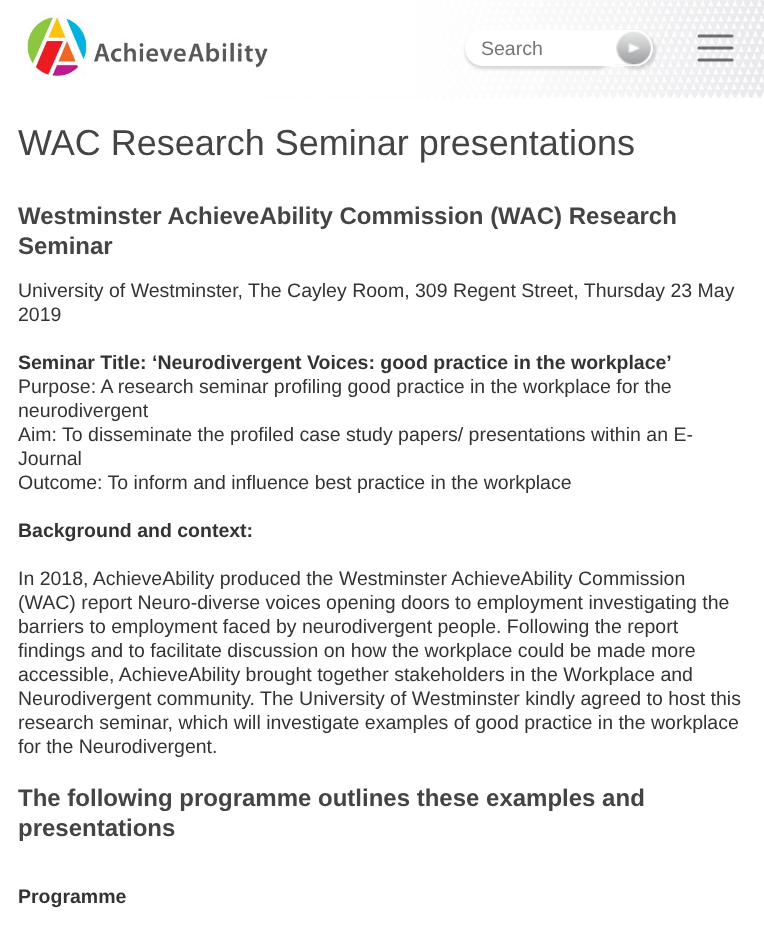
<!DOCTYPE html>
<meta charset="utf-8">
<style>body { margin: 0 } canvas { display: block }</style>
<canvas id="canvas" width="764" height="934"></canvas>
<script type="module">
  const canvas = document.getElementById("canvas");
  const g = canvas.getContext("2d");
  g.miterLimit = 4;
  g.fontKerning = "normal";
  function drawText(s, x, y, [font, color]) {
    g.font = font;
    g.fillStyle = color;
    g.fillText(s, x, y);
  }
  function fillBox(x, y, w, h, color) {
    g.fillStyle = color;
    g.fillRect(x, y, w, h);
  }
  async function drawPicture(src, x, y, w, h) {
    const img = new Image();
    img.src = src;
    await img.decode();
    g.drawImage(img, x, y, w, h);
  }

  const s1 = ["19.5px Liberation Sans", "#757575"];
  const s2 = ["36px Liberation Sans", "#444444"];
  const s3 = ["bold 24px Liberation Sans", "#444444"];
  const s4 = ["19.5px Liberation Sans", "#333333"];
  const s5 = ["bold 19.5px Liberation Sans", "#333333"];

  fillBox(0, 0, 764, 934, "#FFFFFF");
  await drawPicture("pic2.png", 265, 0, 499, 98);
  await drawPicture("pic1.png", 20, 11, 248, 66);
  g.fillStyle = "rgba(0, 0, 0, 0.15)";
  g.filter = "blur(1.5px)";
  g.beginPath();
  g.roundRect(465, 33, 150, 36, 18);
  g.fill();
  g.filter = "none";
  g.fillStyle = "#FFFFFF";
  g.beginPath();
  g.roundRect(465, 30, 150, 36, [18, 0, 0, 18]);
  g.fill();
  drawText("Search", 481, 55, s1);
  g.fillStyle = "rgba(0, 0, 0, 0.15)";
  g.filter = "blur(1.5px)";
  g.beginPath();
  g.roundRect(617, 33, 39, 36, 18);
  g.fill();
  g.filter = "none";
  g.beginPath();
  g.roundRect(615, 31, 37, 34, [0, 17, 17, 0]);
  g.strokeStyle = "#FFFFFF";
  g.lineWidth = 2;
  g.stroke();
  await drawPicture("pic3.png", 615, 31, 36, 34);
  g.beginPath();
  g.moveTo(699, 36);
  g.lineTo(732, 36);
  g.moveTo(699, 48);
  g.lineTo(732, 48);
  g.moveTo(699, 60);
  g.lineTo(732, 60);
  g.strokeStyle = "rgba(0, 0, 0, 0.55)";
  g.lineWidth = 3;
  g.lineCap = "round";
  g.stroke();
  drawText("WAC Research Seminar presentations", 18, 155, s2);
  drawText("Westminster AchieveAbility Commission (WAC) Research", 18, 224, s3);
  drawText("Seminar", 18, 254, s3);
  drawText("University of Westminster, The Cayley Room, 309 Regent Street, Thursday 23 May", 18, 297, s4);
  drawText("2019", 18, 321, s4);
  drawText("Seminar Title: ‘Neurodivergent Voices: good practice in the workplace’", 18, 369, s5);
  drawText("Purpose: A research seminar profiling good practice in the workplace for the", 18, 393, s4);
  drawText("neurodivergent", 18, 417, s4);
  drawText("Aim: To disseminate the profiled case study papers/ presentations within an E-", 18, 441, s4);
  drawText("Journal", 18, 465, s4);
  drawText("Outcome: To inform and influence best practice in the workplace", 18, 489, s4);
  drawText("Background and context:", 18, 537, s5);
  drawText("In 2018, AchieveAbility produced the Westminster AchieveAbility Commission", 18, 585, s4);
  drawText("(WAC) report Neuro-diverse voices opening doors to employment investigating the", 18, 609, s4);
  drawText("barriers to employment faced by neurodivergent people. Following the report", 18, 633, s4);
  drawText("findings and to facilitate discussion on how the workplace could be made more", 18, 657, s4);
  drawText("accessible, AchieveAbility brought together stakeholders in the Workplace and", 18, 681, s4);
  drawText("Neurodivergent community. The University of Westminster kindly agreed to host this", 18, 705, s4);
  drawText("research seminar, which will investigate examples of good practice in the workplace", 18, 729, s4);
  drawText("for the Neurodivergent.", 18, 753, s4);
  drawText("The following programme outlines these examples and", 18, 806, s3);
  drawText("presentations", 18, 836, s3);
  drawText("Programme", 18, 903, s5);
</script>
